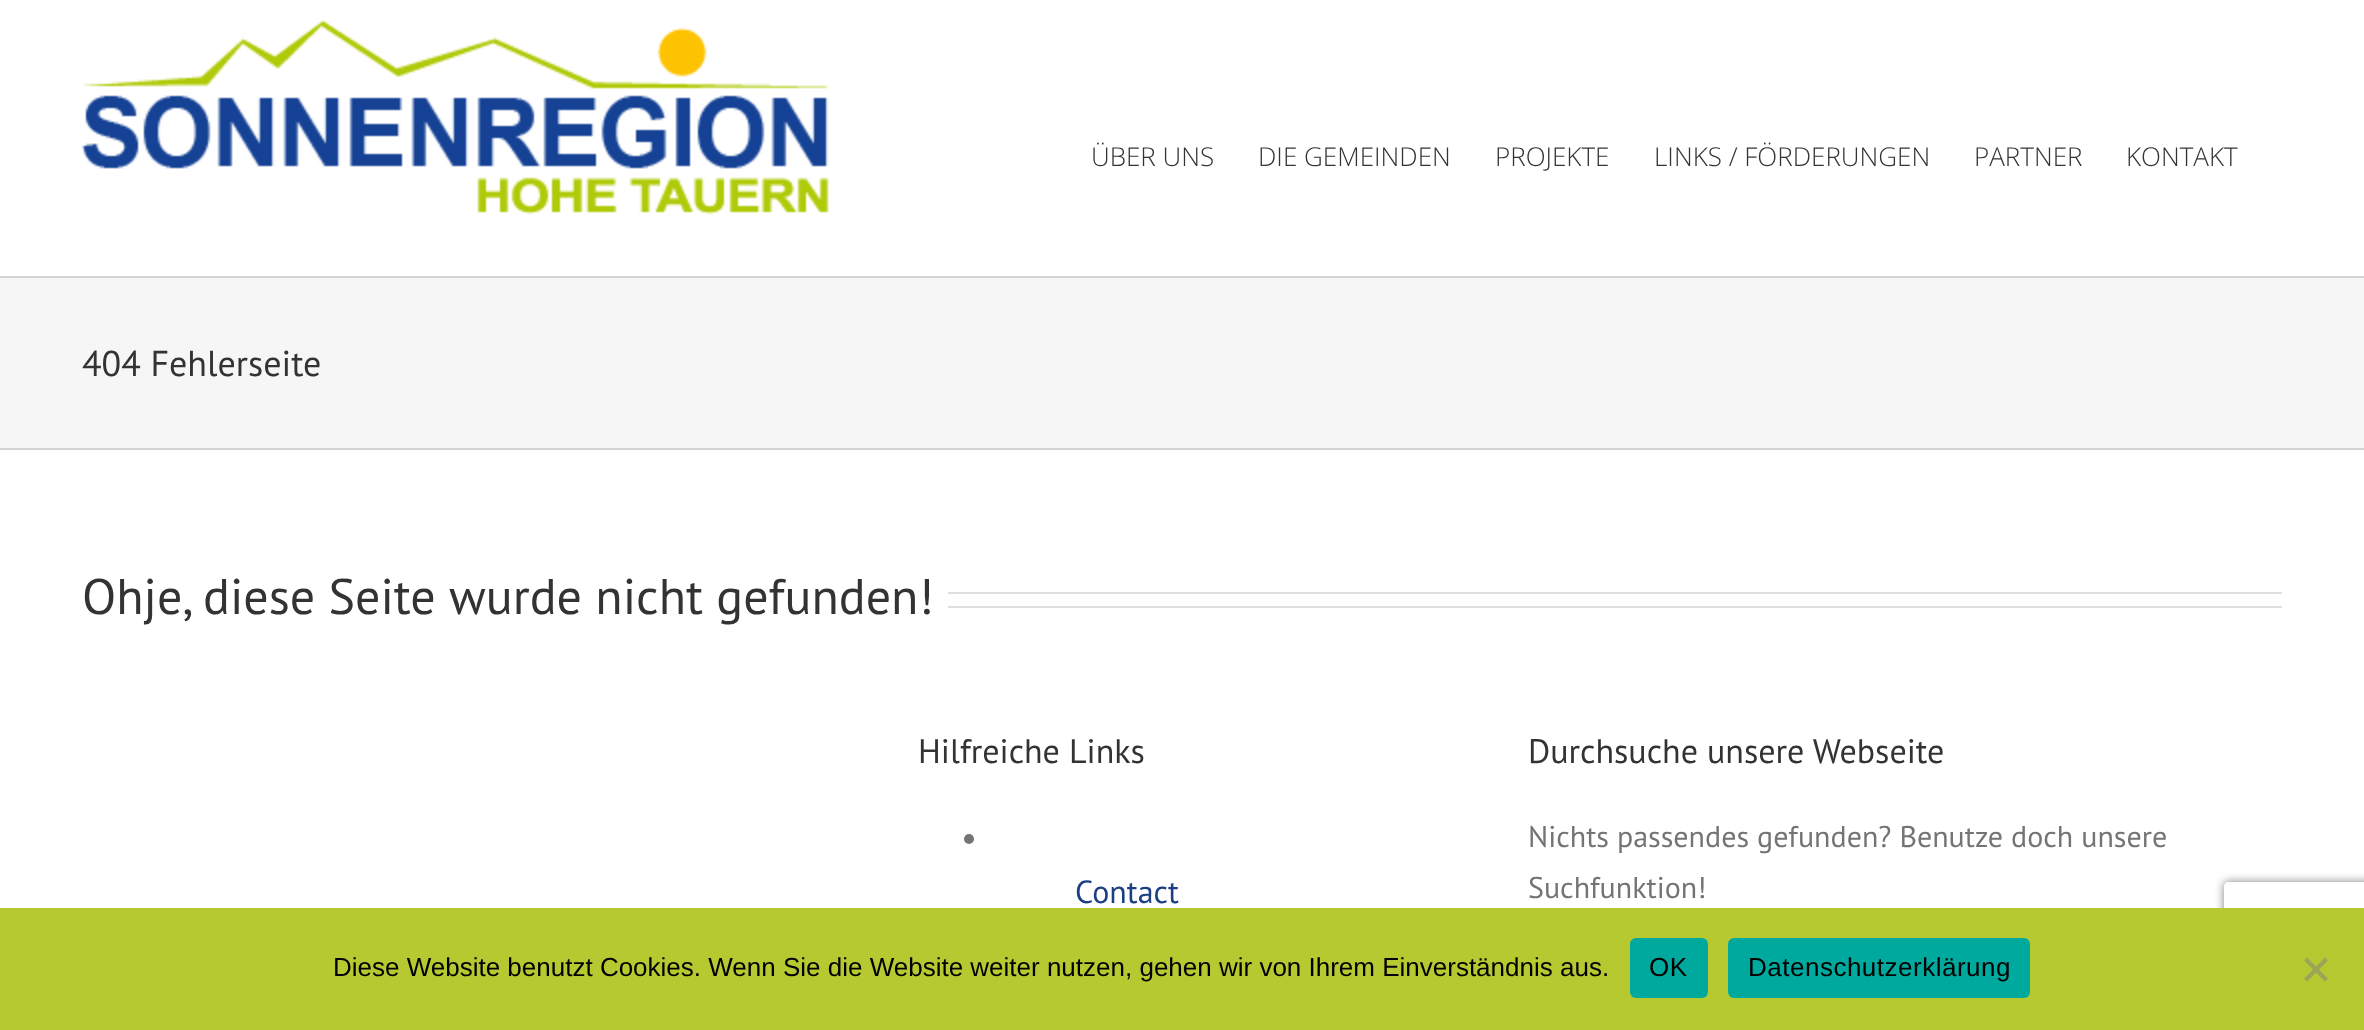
<!DOCTYPE html>
<meta charset="utf-8">
<style>body { margin: 0 } canvas { display: block }</style>
<canvas id="canvas" width="2364" height="1030"></canvas>
<script type="module">
  const canvas = document.getElementById("canvas");
  const g = canvas.getContext("2d");
  g.miterLimit = 4;
  g.fontKerning = "normal";
  function drawText(s, x, y, [font, color]) {
    g.font = font;
    g.fillStyle = color;
    g.fillText(s, x, y);
  }
  function fillBox(x, y, w, h, color) {
    g.fillStyle = color;
    g.fillRect(x, y, w, h);
  }
  function fillRounded(x, y, w, h, r, color) {
    g.fillStyle = color;
    g.beginPath();
    g.roundRect(x, y, w, h, r);
    g.fill();
  }
  async function drawPicture(src, x, y, w, h) {
    const img = new Image();
    img.src = src;
    await img.decode();
    g.drawImage(img, x, y, w, h);
  }

  const s1 = ["300 26px Open Sans", "#333333"];
  const s2 = ["36px PT Sans", "#333333"];
  const s3 = ["50px PT Sans", "#333333"];
  const s4 = ["34px PT Sans", "#333333"];
  const s5 = ["32px PT Sans", "#1B3E84"];
  const s6 = ["30px PT Sans", "#747474"];
  const s7 = ["26px Liberation Sans", "#000000"];

  fillBox(0, 0, 2364, 1030, "#FFFFFF");
  await drawPicture("pic1.png", 82, 20, 747, 194);
  drawText("ÜBER UNS", 1091, 166, s1);
  drawText("DIE GEMEINDEN", 1258, 166, s1);
  drawText("PROJEKTE", 1495, 166, s1);
  drawText("LINKS / FÖRDERUNGEN", 1654, 166, s1);
  drawText("PARTNER", 1974, 166, s1);
  drawText("KONTAKT", 2126, 166, s1);
  fillBox(0, 278, 2364, 170, "#F6F6F6");
  fillBox(0, 276, 2364, 2, "#D2D3D4");
  fillBox(0, 448, 2364, 2, "#D2D3D4");
  drawText("404 Fehlerseite", 82, 376, s2);
  drawText("Ohje, diese Seite wurde nicht gefunden!", 82, 614, s3);
  fillBox(948, 592, 1334, 2, "#E0DEDE");
  fillBox(948, 606, 1334, 2, "#E0DEDE");
  drawText("Hilfreiche Links", 918, 763, s4);
  g.fillStyle = "#747474";
  g.beginPath();
  g.arc(969, 839, 5, 0, Math.PI * 2);
  g.fill();
  drawText("Contact", 1075, 903, s5);
  drawText("Durchsuche unsere Webseite", 1528, 763, s4);
  drawText("Nichts passendes gefunden? Benutze doch unsere", 1528, 847, s6);
  drawText("Suchfunktion!", 1528, 898, s6);
  g.save();
  g.beginPath();
  g.moveTo(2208, 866);
  g.lineTo(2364, 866);
  g.lineTo(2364, 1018);
  g.lineTo(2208, 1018);
  g.closePath();
  g.moveTo(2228, 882);
  g.lineTo(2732, 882);
  g.bezierCurveTo(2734, 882, 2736, 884, 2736, 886);
  g.lineTo(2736, 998);
  g.bezierCurveTo(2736, 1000, 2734, 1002, 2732, 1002);
  g.lineTo(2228, 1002);
  g.bezierCurveTo(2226, 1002, 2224, 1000, 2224, 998);
  g.lineTo(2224, 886);
  g.bezierCurveTo(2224, 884, 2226, 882, 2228, 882);
  g.closePath();
  g.clip("evenodd");
  g.fillStyle = "#808080";
  g.filter = "blur(5px)";
  g.beginPath();
  g.roundRect(2224, 882, 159, 120, 4);
  g.fill();
  g.filter = "none";
  g.restore();
  fillBox(0, 908, 2364, 122, "#B6C930");
  drawText("Diese Website benutzt Cookies. Wenn Sie die Website weiter nutzen, gehen wir von Ihrem Einverständnis aus.", 333, 976, s7);
  fillRounded(1630, 938, 78, 60, 6, "#00A99D");
  g.letterSpacing = "0.5px";
  drawText("OK", 1649, 976, s7);
  fillRounded(1728, 938, 302, 60, 6, "#00A99D");
  drawText("Datenschutzerklärung", 1748, 976, s7);
  g.fillStyle = "#9BA558";
  g.beginPath();
  g.moveTo(2325, 957.5);
  g.lineTo(2328, 960.5);
  g.lineTo(2307, 981.5);
  g.lineTo(2304, 978.5);
  g.closePath();
  g.fill();
  g.beginPath();
  g.moveTo(2304, 960.5);
  g.lineTo(2307, 957.5);
  g.lineTo(2328, 978.5);
  g.lineTo(2325, 981.5);
  g.closePath();
  g.fill();
</script>
